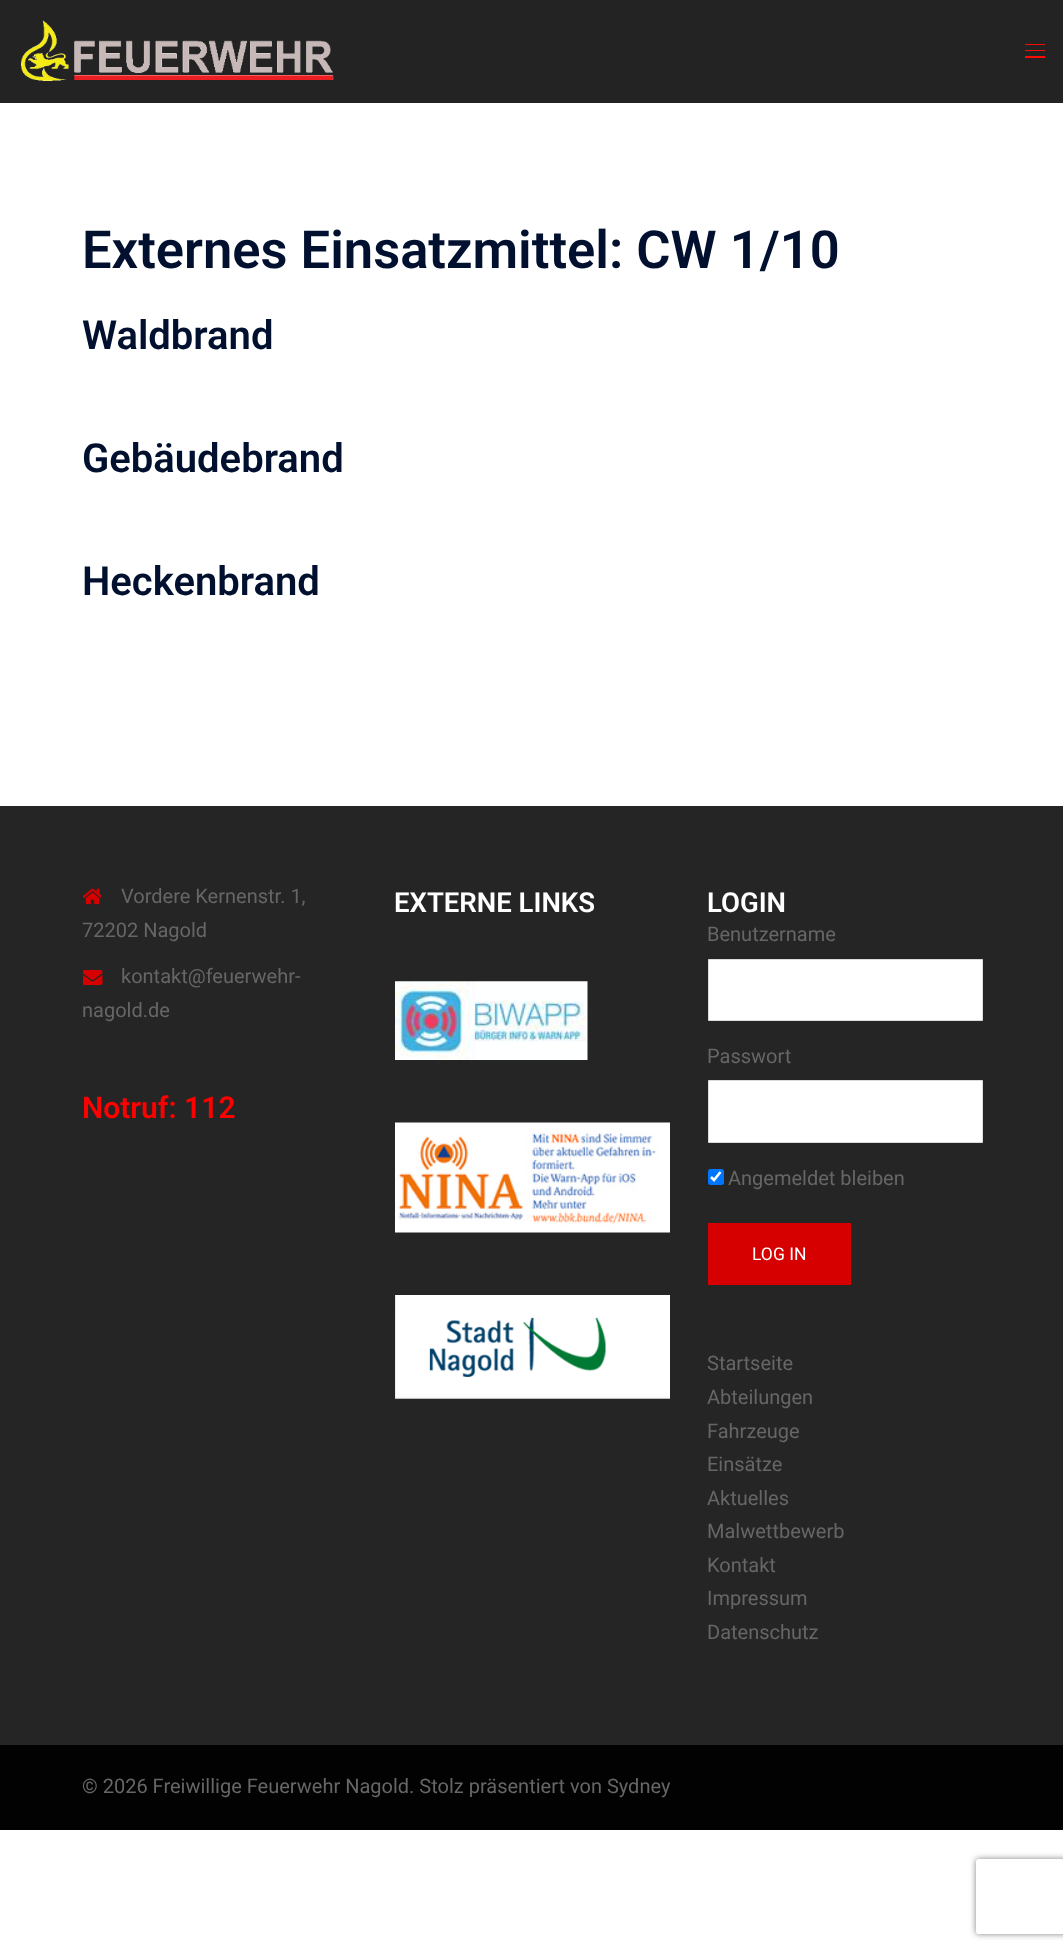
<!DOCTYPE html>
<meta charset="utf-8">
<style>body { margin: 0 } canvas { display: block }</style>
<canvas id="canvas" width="1063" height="1951"></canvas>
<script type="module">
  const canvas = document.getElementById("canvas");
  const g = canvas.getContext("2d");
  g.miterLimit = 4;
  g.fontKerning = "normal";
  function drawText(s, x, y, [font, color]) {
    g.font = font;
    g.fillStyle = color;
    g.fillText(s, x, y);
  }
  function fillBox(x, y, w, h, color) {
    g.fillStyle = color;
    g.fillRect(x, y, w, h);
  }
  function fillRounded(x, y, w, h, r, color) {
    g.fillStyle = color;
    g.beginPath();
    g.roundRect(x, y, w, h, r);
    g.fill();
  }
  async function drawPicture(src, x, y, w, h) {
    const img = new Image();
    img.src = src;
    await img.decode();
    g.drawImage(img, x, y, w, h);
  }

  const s1 = ["600 52.5px Roboto", "#00102E"];
  const s2 = ["600 40px Roboto", "#00102E"];
  const s3 = ["20px Roboto", "#666666"];
  const s4 = ["600 30px Roboto", "#FF0000"];
  const s5 = ["600 27.5px Roboto", "#FFFFFF"];
  const s6 = ["17.5px Roboto", "#FFFFFF"];

  fillBox(0, 0, 1063, 1951, "#FFFFFF");
  fillBox(0, 0, 1063, 103, "#232323");
  await drawPicture("pic1.png", 21, 20, 313, 61);
  fillBox(1025, 44, 20, 1, "#FF0A02");
  fillBox(1025, 50, 20, 1, "#FF0A02");
  fillBox(1025, 56, 20, 2, "#FF0A02");
  drawText("Externes Einsatzmittel: CW 1/10", 82, 268, s1);
  drawText("Waldbrand", 82, 349, s2);
  drawText("Gebäudebrand", 82, 472, s2);
  drawText("Heckenbrand", 82, 595, s2);
  fillBox(0, 806, 1063, 939, "#252525");
  await drawPicture("pic2.png", 83, 888, 18, 17);
  drawText("Vordere Kernenstr. 1,", 121, 903, s3);
  drawText("72202 Nagold", 82, 937, s3);
  await drawPicture("pic3.png", 83, 970, 20, 15);
  drawText("kontakt@feuerwehr-", 121, 983, s3);
  drawText("nagold.de", 82, 1017, s3);
  drawText("Notruf: 112", 82, 1118, s4);
  drawText("EXTERNE LINKS", 394, 912, s5);
  await drawPicture("pic4.png", 395, 981, 193, 79);
  await drawPicture("pic5.png", 395, 1122, 275, 111);
  await drawPicture("pic6.png", 395, 1295, 275, 104);
  drawText("LOGIN", 707, 912, s5);
  drawText("Benutzername", 707, 941, s3);
  g.fillStyle = "#FFFFFF";
  g.beginPath();
  g.rect(708.5, 959.5, 274, 61);
  g.fill();
  g.strokeStyle = "#DBDBDB";
  g.stroke();
  drawText("Passwort", 707, 1063, s3);
  g.fillStyle = "#FFFFFF";
  g.beginPath();
  g.rect(708.5, 1080.5, 274, 62);
  g.fill();
  g.stroke();
  fillRounded(708, 1169, 16, 16, 2.5, "#0075FF");
  g.beginPath();
  g.moveTo(711, 1177);
  g.lineTo(714, 1180);
  g.lineTo(720.5, 1172);
  g.strokeStyle = "#FFFFFF";
  g.lineWidth = 2.6;
  g.stroke();
  drawText("Angemeldet bleiben", 728, 1185, s3);
  fillBox(708, 1223, 143, 62, "#D60000");
  drawText("LOG IN", 752, 1260, s6);
  drawText("Startseite", 707, 1370, s3);
  drawText("Abteilungen", 707, 1404, s3);
  drawText("Fahrzeuge", 707, 1438, s3);
  drawText("Einsätze", 707, 1471, s3);
  drawText("Aktuelles", 707, 1505, s3);
  drawText("Malwettbewerb", 707, 1538, s3);
  drawText("Kontakt", 707, 1572, s3);
  drawText("Impressum", 707, 1605, s3);
  drawText("Datenschutz", 707, 1639, s3);
  fillBox(0, 1745, 1063, 85, "#020202");
  drawText("© 2026 Freiwillige Feuerwehr Nagold. Stolz präsentiert von Sydney", 82, 1793, s3);
  g.save();
  g.beginPath();
  g.moveTo(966, 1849);
  g.lineTo(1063, 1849);
  g.lineTo(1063, 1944);
  g.lineTo(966, 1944);
  g.closePath();
  g.moveTo(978.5, 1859);
  g.lineTo(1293.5, 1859);
  g.bezierCurveTo(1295, 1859, 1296, 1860, 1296, 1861.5);
  g.lineTo(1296, 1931.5);
  g.bezierCurveTo(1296, 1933, 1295, 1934, 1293.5, 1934);
  g.lineTo(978.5, 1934);
  g.bezierCurveTo(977, 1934, 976, 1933, 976, 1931.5);
  g.lineTo(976, 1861.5);
  g.bezierCurveTo(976, 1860, 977, 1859, 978.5, 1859);
  g.closePath();
  g.clip("evenodd");
  g.fillStyle = "#808080";
  g.filter = "blur(3px)";
  g.beginPath();
  g.roundRect(976, 1859, 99, 75, 2.5);
  g.fill();
  g.filter = "none";
  g.restore();
</script>
